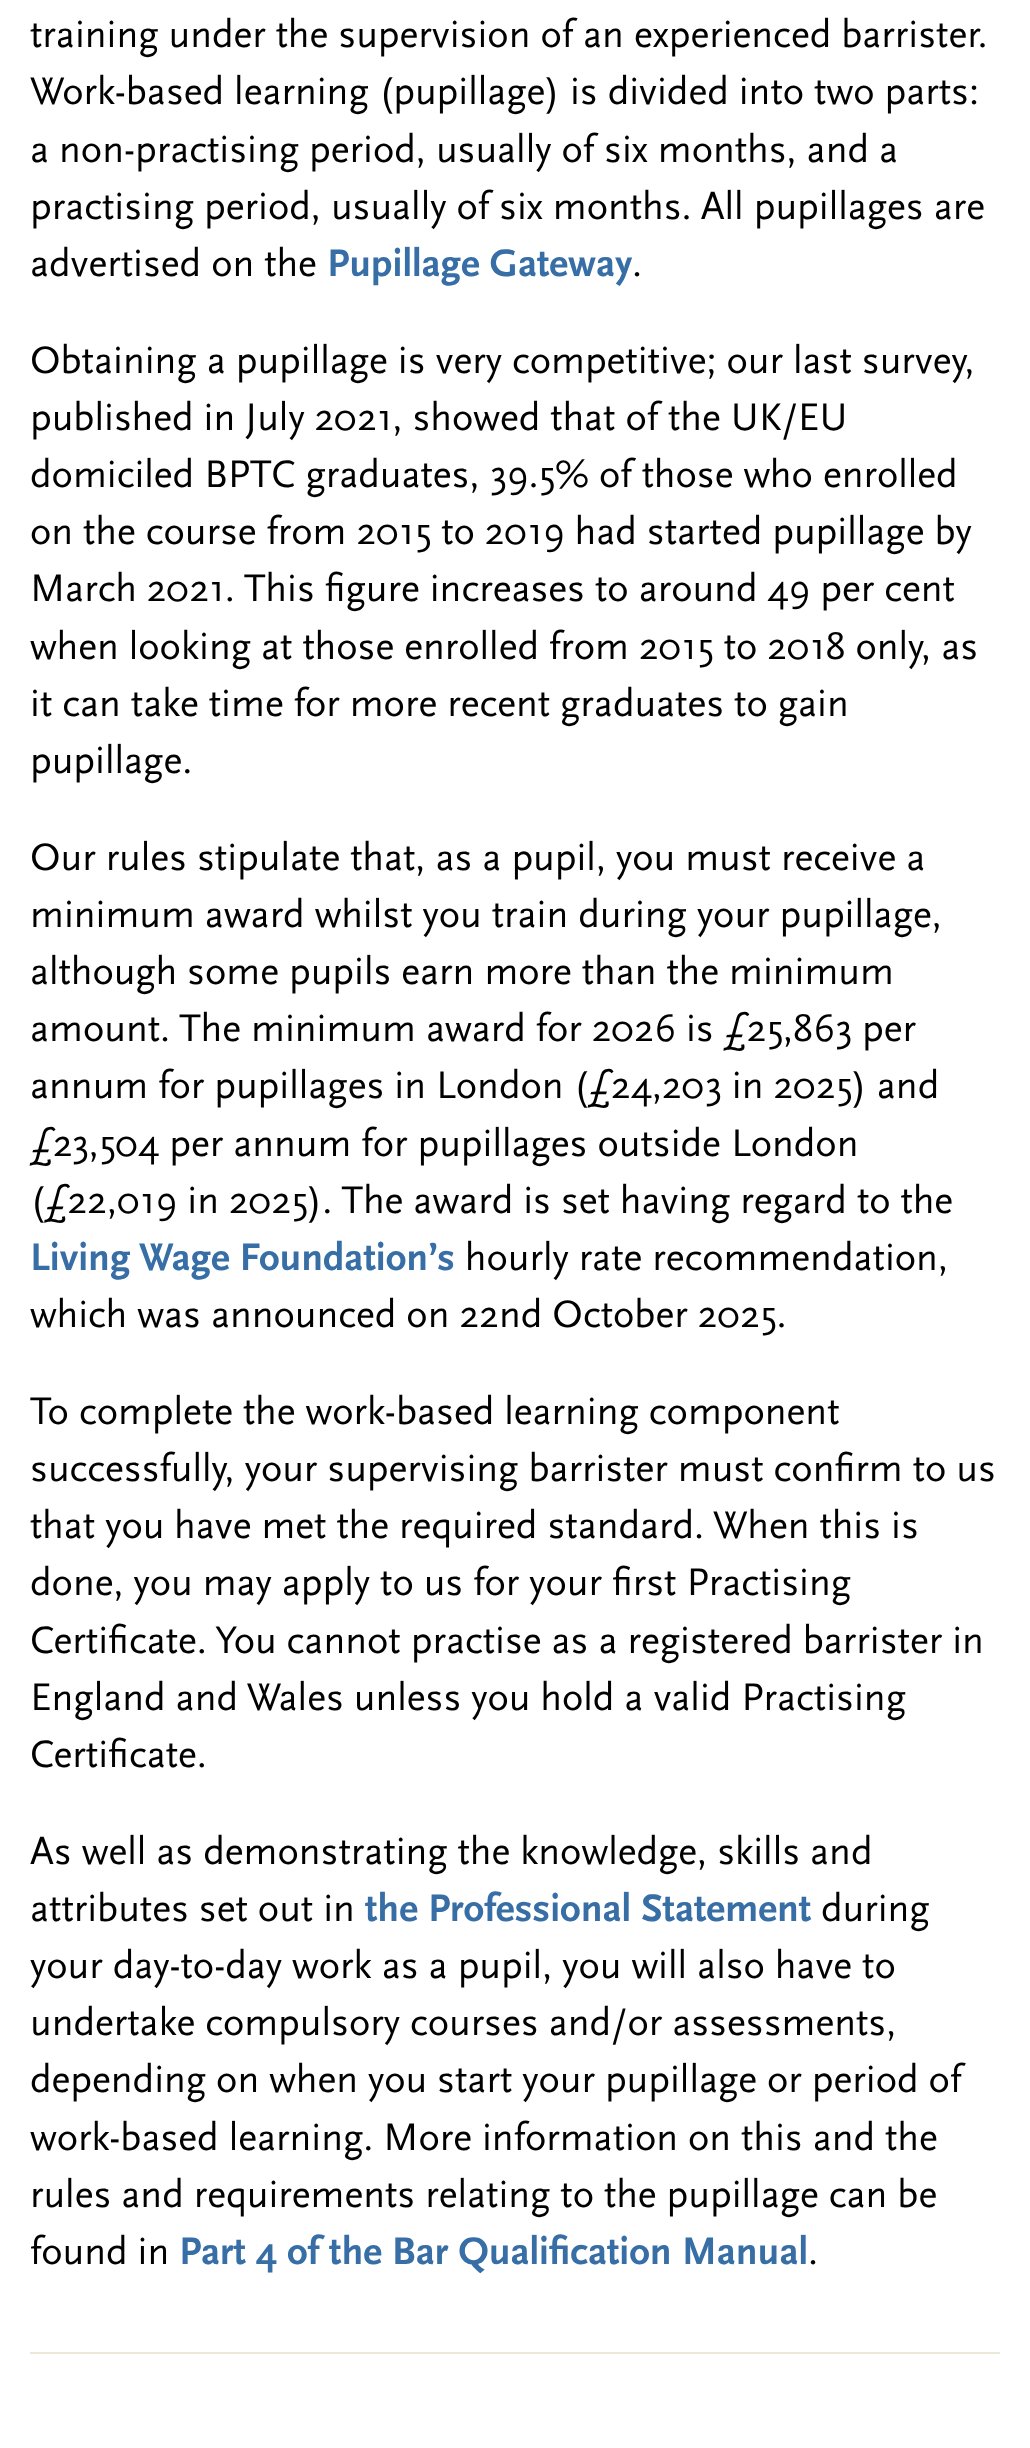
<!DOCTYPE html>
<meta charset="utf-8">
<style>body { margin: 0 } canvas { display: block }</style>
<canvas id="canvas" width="1030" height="2448"></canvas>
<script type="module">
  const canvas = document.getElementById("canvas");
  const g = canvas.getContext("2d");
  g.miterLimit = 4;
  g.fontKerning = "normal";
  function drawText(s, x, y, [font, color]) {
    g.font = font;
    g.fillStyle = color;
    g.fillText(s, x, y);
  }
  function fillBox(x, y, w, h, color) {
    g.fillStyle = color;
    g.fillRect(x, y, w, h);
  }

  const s1 = ["40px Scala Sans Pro", "#000000"];
  const s2 = ["bold 40px Scala Sans Pro", "#376EA6"];

  fillBox(0, 0, 1030, 2448, "#FFFFFF");
  drawText("training under the supervision of an experienced barrister.", 30, 47, s1);
  drawText("Work-based learning (pupillage) is divided into two parts:", 30, 104, s1);
  drawText("a non-practising period, usually of six months, and a", 30, 162, s1);
  drawText("practising period, usually of six months. All pupillages are", 30, 219, s1);
  drawText("advertised on the", 30, 276, s1);
  drawText("Pupillage Gateway", 327, 276, s2);
  drawText(".", 632, 276, s1);
  drawText("Obtaining a pupillage is very competitive; our last survey,", 30, 373, s1);
  drawText("published in July 2021, showed that of the UK/EU", 30, 430, s1);
  drawText("domiciled BPTC graduates, 39.5% of those who enrolled", 30, 487, s1);
  drawText("on the course from 2015 to 2019 had started pupillage by", 30, 544, s1);
  drawText("March 2021. This figure increases to around 49 per cent", 30, 601, s1);
  drawText("when looking at those enrolled from 2015 to 2018 only, as", 30, 659, s1);
  drawText("it can take time for more recent graduates to gain", 30, 716, s1);
  drawText("pupillage.", 30, 773, s1);
  drawText("Our rules stipulate that, as a pupil, you must receive a", 30, 870, s1);
  drawText("minimum award whilst you train during your pupillage,", 30, 927, s1);
  drawText("although some pupils earn more than the minimum", 30, 984, s1);
  drawText("amount. The minimum award for 2026 is £25,863 per", 30, 1041, s1);
  drawText("annum for pupillages in London (£24,203 in 2025) and", 30, 1098, s1);
  drawText("£23,504 per annum for pupillages outside London", 30, 1156, s1);
  drawText("(£22,019 in 2025). The award is set having regard to the", 30, 1213, s1);
  drawText("Living Wage Foundation’s", 30, 1270, s2);
  drawText("hourly rate recommendation,", 465, 1270, s1);
  drawText("which was announced on 22nd October 2025.", 30, 1327, s1);
  drawText("To complete the work-based learning component", 30, 1424, s1);
  drawText("successfully, your supervising barrister must confirm to us", 30, 1481, s1);
  drawText("that you have met the required standard. When this is", 30, 1538, s1);
  drawText("done, you may apply to us for your first Practising", 30, 1595, s1);
  drawText("Certificate. You cannot practise as a registered barrister in", 30, 1653, s1);
  drawText("England and Wales unless you hold a valid Practising", 30, 1710, s1);
  drawText("Certificate.", 30, 1767, s1);
  drawText("As well as demonstrating the knowledge, skills and", 30, 1864, s1);
  drawText("attributes set out in", 30, 1921, s1);
  drawText("the Professional Statement", 365, 1921, s2);
  drawText("during", 821, 1921, s1);
  drawText("your day-to-day work as a pupil, you will also have to", 30, 1978, s1);
  drawText("undertake compulsory courses and/or assessments,", 30, 2035, s1);
  drawText("depending on when you start your pupillage or period of", 30, 2092, s1);
  drawText("work-based learning. More information on this and the", 30, 2150, s1);
  drawText("rules and requirements relating to the pupillage can be", 30, 2207, s1);
  drawText("found in", 30, 2264, s1);
  drawText("Part 4 of the Bar Qualification Manual", 179, 2264, s2);
  drawText(".", 808, 2264, s1);
  fillBox(30, 2352, 970, 2, "#EBE8DA");
</script>
